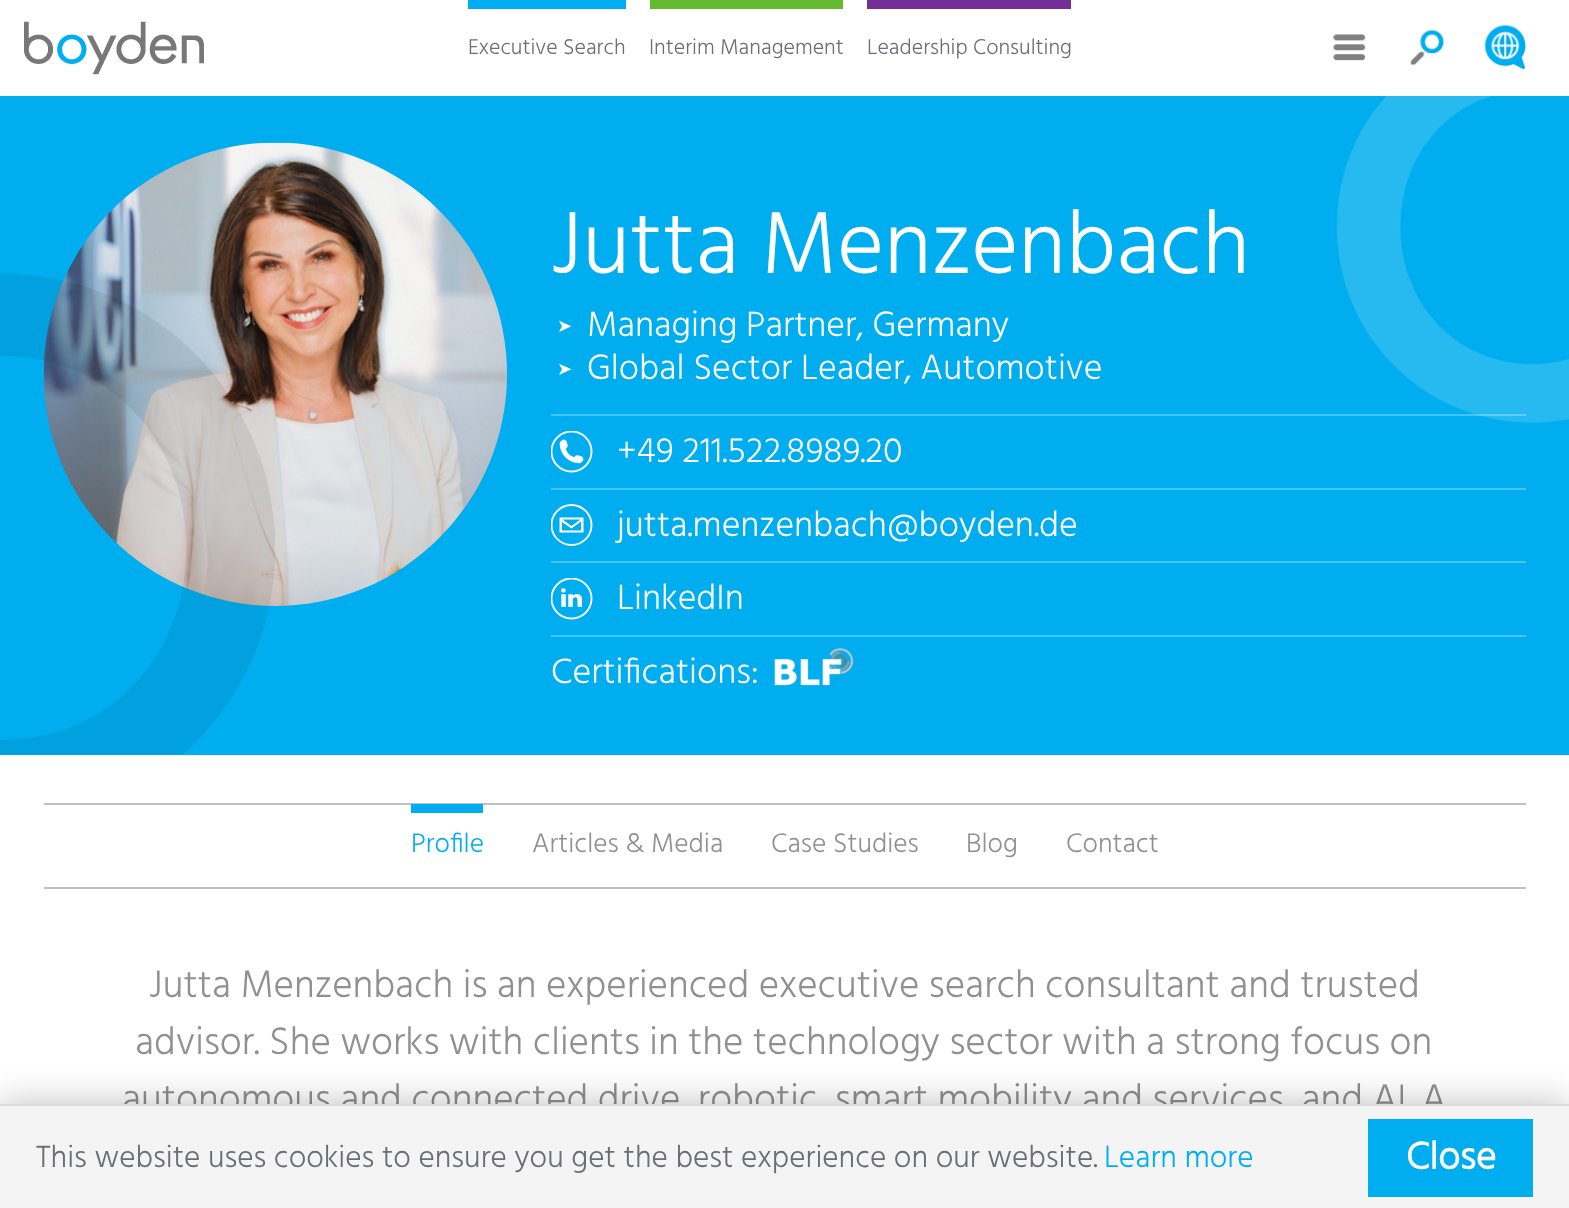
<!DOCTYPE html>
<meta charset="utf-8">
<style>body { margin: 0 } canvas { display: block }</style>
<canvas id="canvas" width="1569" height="1208"></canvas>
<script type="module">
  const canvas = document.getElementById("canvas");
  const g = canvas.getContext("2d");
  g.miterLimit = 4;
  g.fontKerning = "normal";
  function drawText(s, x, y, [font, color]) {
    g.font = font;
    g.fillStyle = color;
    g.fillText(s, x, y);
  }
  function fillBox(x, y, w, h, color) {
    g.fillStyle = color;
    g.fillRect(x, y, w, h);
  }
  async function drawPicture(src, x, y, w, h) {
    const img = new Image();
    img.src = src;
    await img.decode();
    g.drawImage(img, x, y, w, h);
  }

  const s1 = ["300 22px Hind", "#6C6E71"];
  const s2 = ["300 90px Hind", "#FFFFFF"];
  const s3 = ["18px DejaVu Sans", "#FFFFFF"];
  const s4 = ["300 36px Hind", "#FFFFFF"];
  const s5 = ["300 27.5px Hind", "#00AEEF"];
  const s6 = ["300 27.5px Hind", "#909090"];
  const s7 = ["300 39.2px Hind", "#909090"];
  const s8 = ["300 31.4px Hind", "#6C6E71"];
  const s9 = ["300 31.4px Hind", "#00AEEF"];
  const s10 = ["bold 39px Hind", "#FFFFFF"];

  fillBox(0, 0, 1569, 1208, "#FFFFFF");
  await drawPicture("pic1.png", 24, 21, 180, 54);
  fillBox(468, 0, 158, 9, "#00AEEF");
  drawText("Executive Search", 468, 54, s1);
  fillBox(650, 0, 193, 9, "#65BA30");
  drawText("Interim Management", 649, 54, s1);
  fillBox(867, 0, 204, 9, "#742E98");
  drawText("Leadership Consulting", 867, 54, s1);
  await drawPicture("pic2.png", 1333, 34, 33, 27);
  await drawPicture("pic3.png", 1410, 30, 34, 35);
  await drawPicture("pic4.png", 1484, 25, 42, 44);
  fillBox(0, 96, 1569, 659, "#00AEEF");
  await drawPicture("pic6.png", 43, 142, 464, 464);
  await drawPicture("pic5.png", 0, 273, 275, 482);
  drawText("Jutta Menzenbach", 551, 273, s2);
  fillBox(551, 414, 975, 2, "#43C6F7");
  drawText("➤", 557, 332, s3);
  drawText("Managing Partner, Germany", 587, 336, s4);
  drawText("➤", 557, 375, s3);
  drawText("Global Sector Leader, Automotive", 587, 379, s4);
  fillBox(551, 488, 975, 2, "#43C6F7");
  await drawPicture("pic7.png", 551, 431, 42, 42);
  drawText("+49 211.522.8989.20", 617, 462, s4);
  fillBox(551, 561, 975, 2, "#43C6F7");
  g.fillStyle = "#FFFFFF";
  g.beginPath();
  g.moveTo(559.5, 517.5);
  g.lineTo(559.5, 532.5);
  g.lineTo(583.5, 532.5);
  g.lineTo(583.5, 517.5);
  g.closePath();
  g.moveTo(580.5, 519.5);
  g.lineTo(571.5, 526);
  g.lineTo(562.5, 519.5);
  g.closePath();
  g.moveTo(581, 530.5);
  g.lineTo(562, 530.5);
  g.lineTo(562, 522);
  g.lineTo(571.5, 528.5);
  g.lineTo(581, 521.5);
  g.closePath();
  g.fill();
  g.save();
  g.beginPath();
  g.rect(551, 504, 42, 42);
  g.clip();
  g.beginPath();
  g.arc(571.5, 525, 20, 0, Math.PI * 2);
  g.strokeStyle = "#FFFFFF";
  g.lineWidth = 1.9;
  g.stroke();
  g.restore();
  drawText("jutta.menzenbach@boyden.de", 617, 536, s4);
  fillBox(551, 635, 975, 2, "#43C6F7");
  await drawPicture("pic8.png", 551, 578, 42, 42);
  drawText("LinkedIn", 617, 609, s4);
  drawText("Certifications:", 551, 683, s4);
  await drawPicture("pic9.png", 774, 648, 80, 38);
  await drawPicture("pic10.png", 1336, 96, 233, 327);
  fillBox(44, 803, 1482, 2, "#BFC0C1");
  fillBox(44, 887, 1482, 2, "#BFC0C1");
  fillBox(411, 804, 72, 9, "#00AEEF");
  drawText("Profile", 411, 852, s5);
  drawText("Articles & Media", 532, 852, s6);
  drawText("Case Studies", 771, 852, s6);
  drawText("Blog", 966, 852, s6);
  drawText("Contact", 1066, 852, s6);
  drawText("Jutta Menzenbach is an experienced executive search consultant and trusted", 149, 997, s7);
  drawText("advisor. She works with clients in the technology sector with a strong focus on", 135, 1054, s7);
  drawText("autonomous and connected drive, robotic, smart mobility and services, and AI. A", 122, 1111, s7);
  g.fillStyle = "rgba(0, 0, 0, 0.25)";
  g.filter = "blur(18px)";
  g.beginPath();
  g.rect(0, 1104, 1569, 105);
  g.fill();
  g.filter = "none";
  fillBox(0, 1106, 1569, 102, "#F4F4F4");
  fillBox(0, 1104, 1569, 2, "#DDDDDD");
  drawText("This website uses cookies to ensure you get the best experience on our website.", 36, 1167, s8);
  drawText("Learn more", 1104, 1167, s9);
  fillBox(1368, 1119, 165, 78, "#00ADEF");
  drawText("Close", 1406, 1169, s10);
</script>
